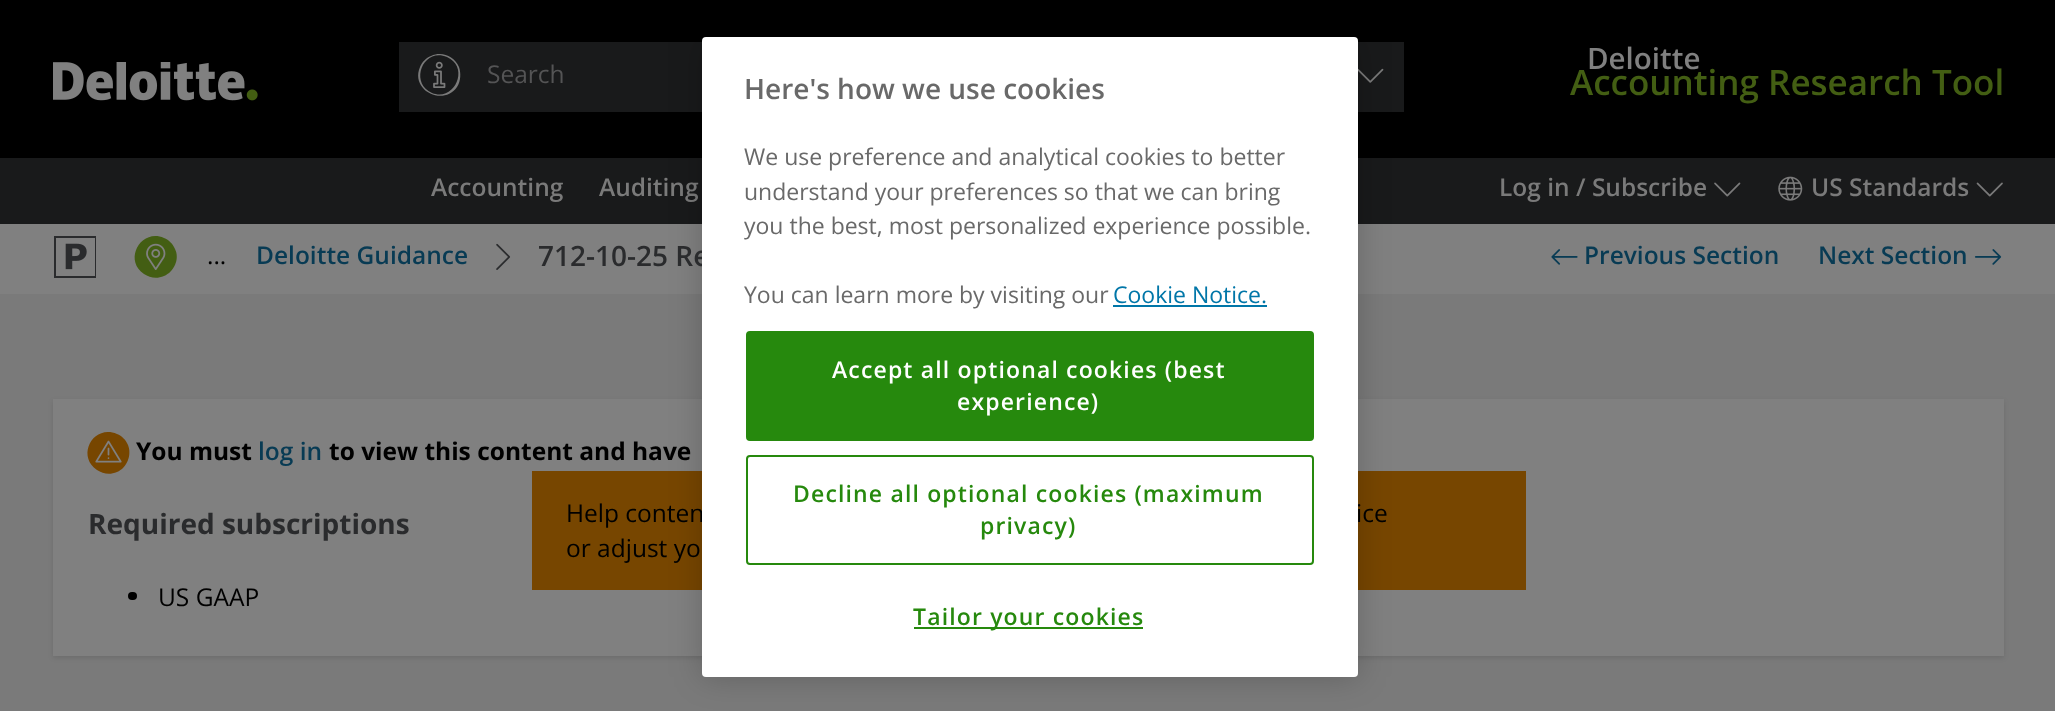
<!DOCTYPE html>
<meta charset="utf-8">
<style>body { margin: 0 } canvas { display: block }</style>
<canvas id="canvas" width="2055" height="711"></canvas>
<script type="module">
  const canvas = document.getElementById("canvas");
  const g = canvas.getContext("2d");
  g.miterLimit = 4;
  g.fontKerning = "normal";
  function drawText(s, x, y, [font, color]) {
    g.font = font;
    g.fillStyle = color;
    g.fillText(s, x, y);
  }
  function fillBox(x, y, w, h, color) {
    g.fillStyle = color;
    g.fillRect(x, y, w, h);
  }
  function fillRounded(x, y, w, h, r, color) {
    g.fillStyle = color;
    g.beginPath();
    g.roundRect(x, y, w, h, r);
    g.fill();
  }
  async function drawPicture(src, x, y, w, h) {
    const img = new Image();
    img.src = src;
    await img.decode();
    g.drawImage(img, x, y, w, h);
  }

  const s1 = ["24.5px Open Sans", "#545455"];
  const s2 = ["600 29.5px Open Sans", "#808080"];
  const s3 = ["600 35px Open Sans", "#435E13"];
  const s4 = ["600 24.5px Open Sans", "#7A7A7A"];
  const s5 = ["600 28px Open Sans", "#2A2B2D"];
  const s6 = ["24.5px Open Sans", "#000000"];
  const s7 = ["600 28px Open Sans", "#696969"];
  const s8 = ["23px Open Sans", "#696969"];
  const s9 = ["23px Open Sans", "#0076A8"];
  const s10 = ["600 23px Open Sans", "#FFFFFF"];
  const s11 = ["600 23px Open Sans", "#26890D"];
  const s12 = ["600 24.5px Open Sans", "#083B54"];
  const s13 = ["bold 24.5px Open Sans", "#000000"];
  const s14 = ["bold 28px Open Sans", "#2A2B2D"];

  fillBox(0, 0, 2055, 711, "#000000");
  await drawPicture("pic1.png", 53, 62, 192, 39);
  await drawPicture("pic2.png", 246, 89, 12, 12);
  fillBox(399, 42, 1005, 70, "#191A1B");
  g.fillStyle = "#7A7A7A";
  g.beginPath();
  g.moveTo(431, 56);
  g.bezierCurveTo(442, 51, 454, 56, 459, 67);
  g.bezierCurveTo(461, 73, 461, 81, 457, 87);
  g.bezierCurveTo(443, 107, 410, 90, 420, 67);
  g.bezierCurveTo(422, 62, 426, 58, 431, 56);
  g.closePath();
  g.moveTo(447, 57);
  g.bezierCurveTo(423, 47, 409, 83, 432, 93);
  g.bezierCurveTo(455, 102, 470, 67, 447, 57);
  g.closePath();
  g.fill();
  await drawPicture("pic3.png", 433, 61, 13, 27);
  drawText("Search", 487, 83, s1);
  await drawPicture("pic4.png", 1358, 68, 26, 15);
  drawText("Deloitte", 1587, 69, s2);
  drawText("Accounting Research Tool", 1570, 95, s3);
  fillBox(0, 158, 2055, 66, "#191A1B");
  drawText("Accounting", 431, 196, s4);
  drawText("Auditing", 599, 196, s4);
  drawText("Log in / Subscribe", 1499, 196, s4);
  await drawPicture("pic5.png", 1714, 182, 27, 15);
  await drawPicture("pic6.png", 1778, 176, 25, 25);
  drawText("US Standards", 1811, 196, s4);
  await drawPicture("pic7.png", 1976, 182, 27, 15);
  fillBox(0, 294, 2055, 417, "#7A7A7A");
  fillBox(0, 224, 2055, 70, "#808080");
  g.fillStyle = "rgba(0, 0, 0, 0.1)";
  g.filter = "blur(2.5px)";
  g.beginPath();
  g.rect(53, 401, 1951, 257);
  g.fill();
  g.filter = "none";
  fillBox(53, 399, 1951, 257, "#808080");
  fillBox(532, 471, 994, 119, "#774600");
  g.fillStyle = "rgba(0, 0, 0, 0.2)";
  g.filter = "blur(16px)";
  g.beginPath();
  g.roundRect(702, 37, 656, 640, 4);
  g.fill();
  g.filter = "none";
  drawText("712-10-25 Re", 538, 266, s5);
  drawText("Help conten", 566, 522, s6);
  drawText("ice", 1356, 522, s6);
  fillRounded(702, 37, 656, 640, 4, "#FFFFFF");
  drawText("Here's how we use cookies", 744, 99, s7);
  drawText("We use preference and analytical cookies to better", 744, 165, s8);
  drawText("understand your preferences so that we can bring", 744, 200, s8);
  drawText("you the best, most personalized experience possible.", 744, 234, s8);
  drawText("You can learn more by visiting our", 744, 303, s8);
  drawText("Cookie Notice.", 1113, 303, s9);
  fillBox(1113, 305, 154, 2, "#0076A8");
  g.fillStyle = "#26890D";
  g.beginPath();
  g.roundRect(747, 332, 566, 108, 3);
  g.fill();
  g.strokeStyle = "#26890D";
  g.lineWidth = 2;
  g.stroke();
  g.letterSpacing = "1.15px";
  drawText("Accept all optional cookies (best", 832, 378, s10);
  drawText("experience)", 957, 410, s10);
  g.beginPath();
  g.roundRect(747, 456, 566, 108, 3);
  g.stroke();
  drawText("Decline all optional cookies (maximum", 793, 502, s11);
  drawText("privacy)", 980, 534, s11);
  fillBox(914, 627, 229, 2, "#26890D");
  drawText("Tailor your cookies", 913, 625, s11);
  g.fillStyle = "#2A2B2D";
  g.beginPath();
  g.moveTo(54, 236);
  g.lineTo(96, 236);
  g.lineTo(96, 278);
  g.lineTo(54, 278);
  g.closePath();
  g.moveTo(56, 238);
  g.lineTo(56, 276);
  g.lineTo(95, 276);
  g.lineTo(95, 238);
  g.closePath();
  g.fill();
  await drawPicture("pic8.png", 65, 243, 22, 27);
  g.fillStyle = "#435E13";
  g.beginPath();
  g.moveTo(175, 249);
  g.bezierCurveTo(180, 259, 174, 272, 164, 276);
  g.bezierCurveTo(157, 279, 150, 278, 144, 274);
  g.bezierCurveTo(123, 260, 141, 228, 164, 238);
  g.bezierCurveTo(169, 240, 173, 244, 175, 249);
  g.closePath();
  g.fill();
  await drawPicture("pic9.png", 146, 243, 20, 27);
  g.letterSpacing = "0px";
  drawText("...", 207, 264, s6);
  drawText("Deloitte Guidance", 256, 264, s12);
  await drawPicture("pic10.png", 496, 243, 15, 27);
  await drawPicture("pic11.png", 1551, 249, 27, 16);
  drawText("Previous Section", 1584, 264, s12);
  drawText("Next Section", 1818, 264, s12);
  await drawPicture("pic12.png", 1974, 249, 28, 16);
  g.fillStyle = "#774600";
  g.beginPath();
  g.moveTo(128, 445);
  g.bezierCurveTo(132, 455, 127, 468, 117, 472);
  g.bezierCurveTo(110, 475, 103, 474, 97, 470);
  g.bezierCurveTo(76, 456, 93, 424, 117, 434);
  g.bezierCurveTo(122, 436, 126, 440, 128, 445);
  g.closePath();
  g.fill();
  await drawPicture("pic13.png", 95, 440, 27, 23);
  drawText("You must", 136, 460, s13);
  drawText("log in", 258, 460, s12);
  drawText("to view this content and have", 329, 460, s13);
  drawText("Required subscriptions", 88, 534, s14);
  fillRounded(128, 592, 9, 8, 4, "#000000");
  drawText("US GAAP", 158, 606, s6);
  drawText("or adjust yo", 566, 557, s6);
</script>
